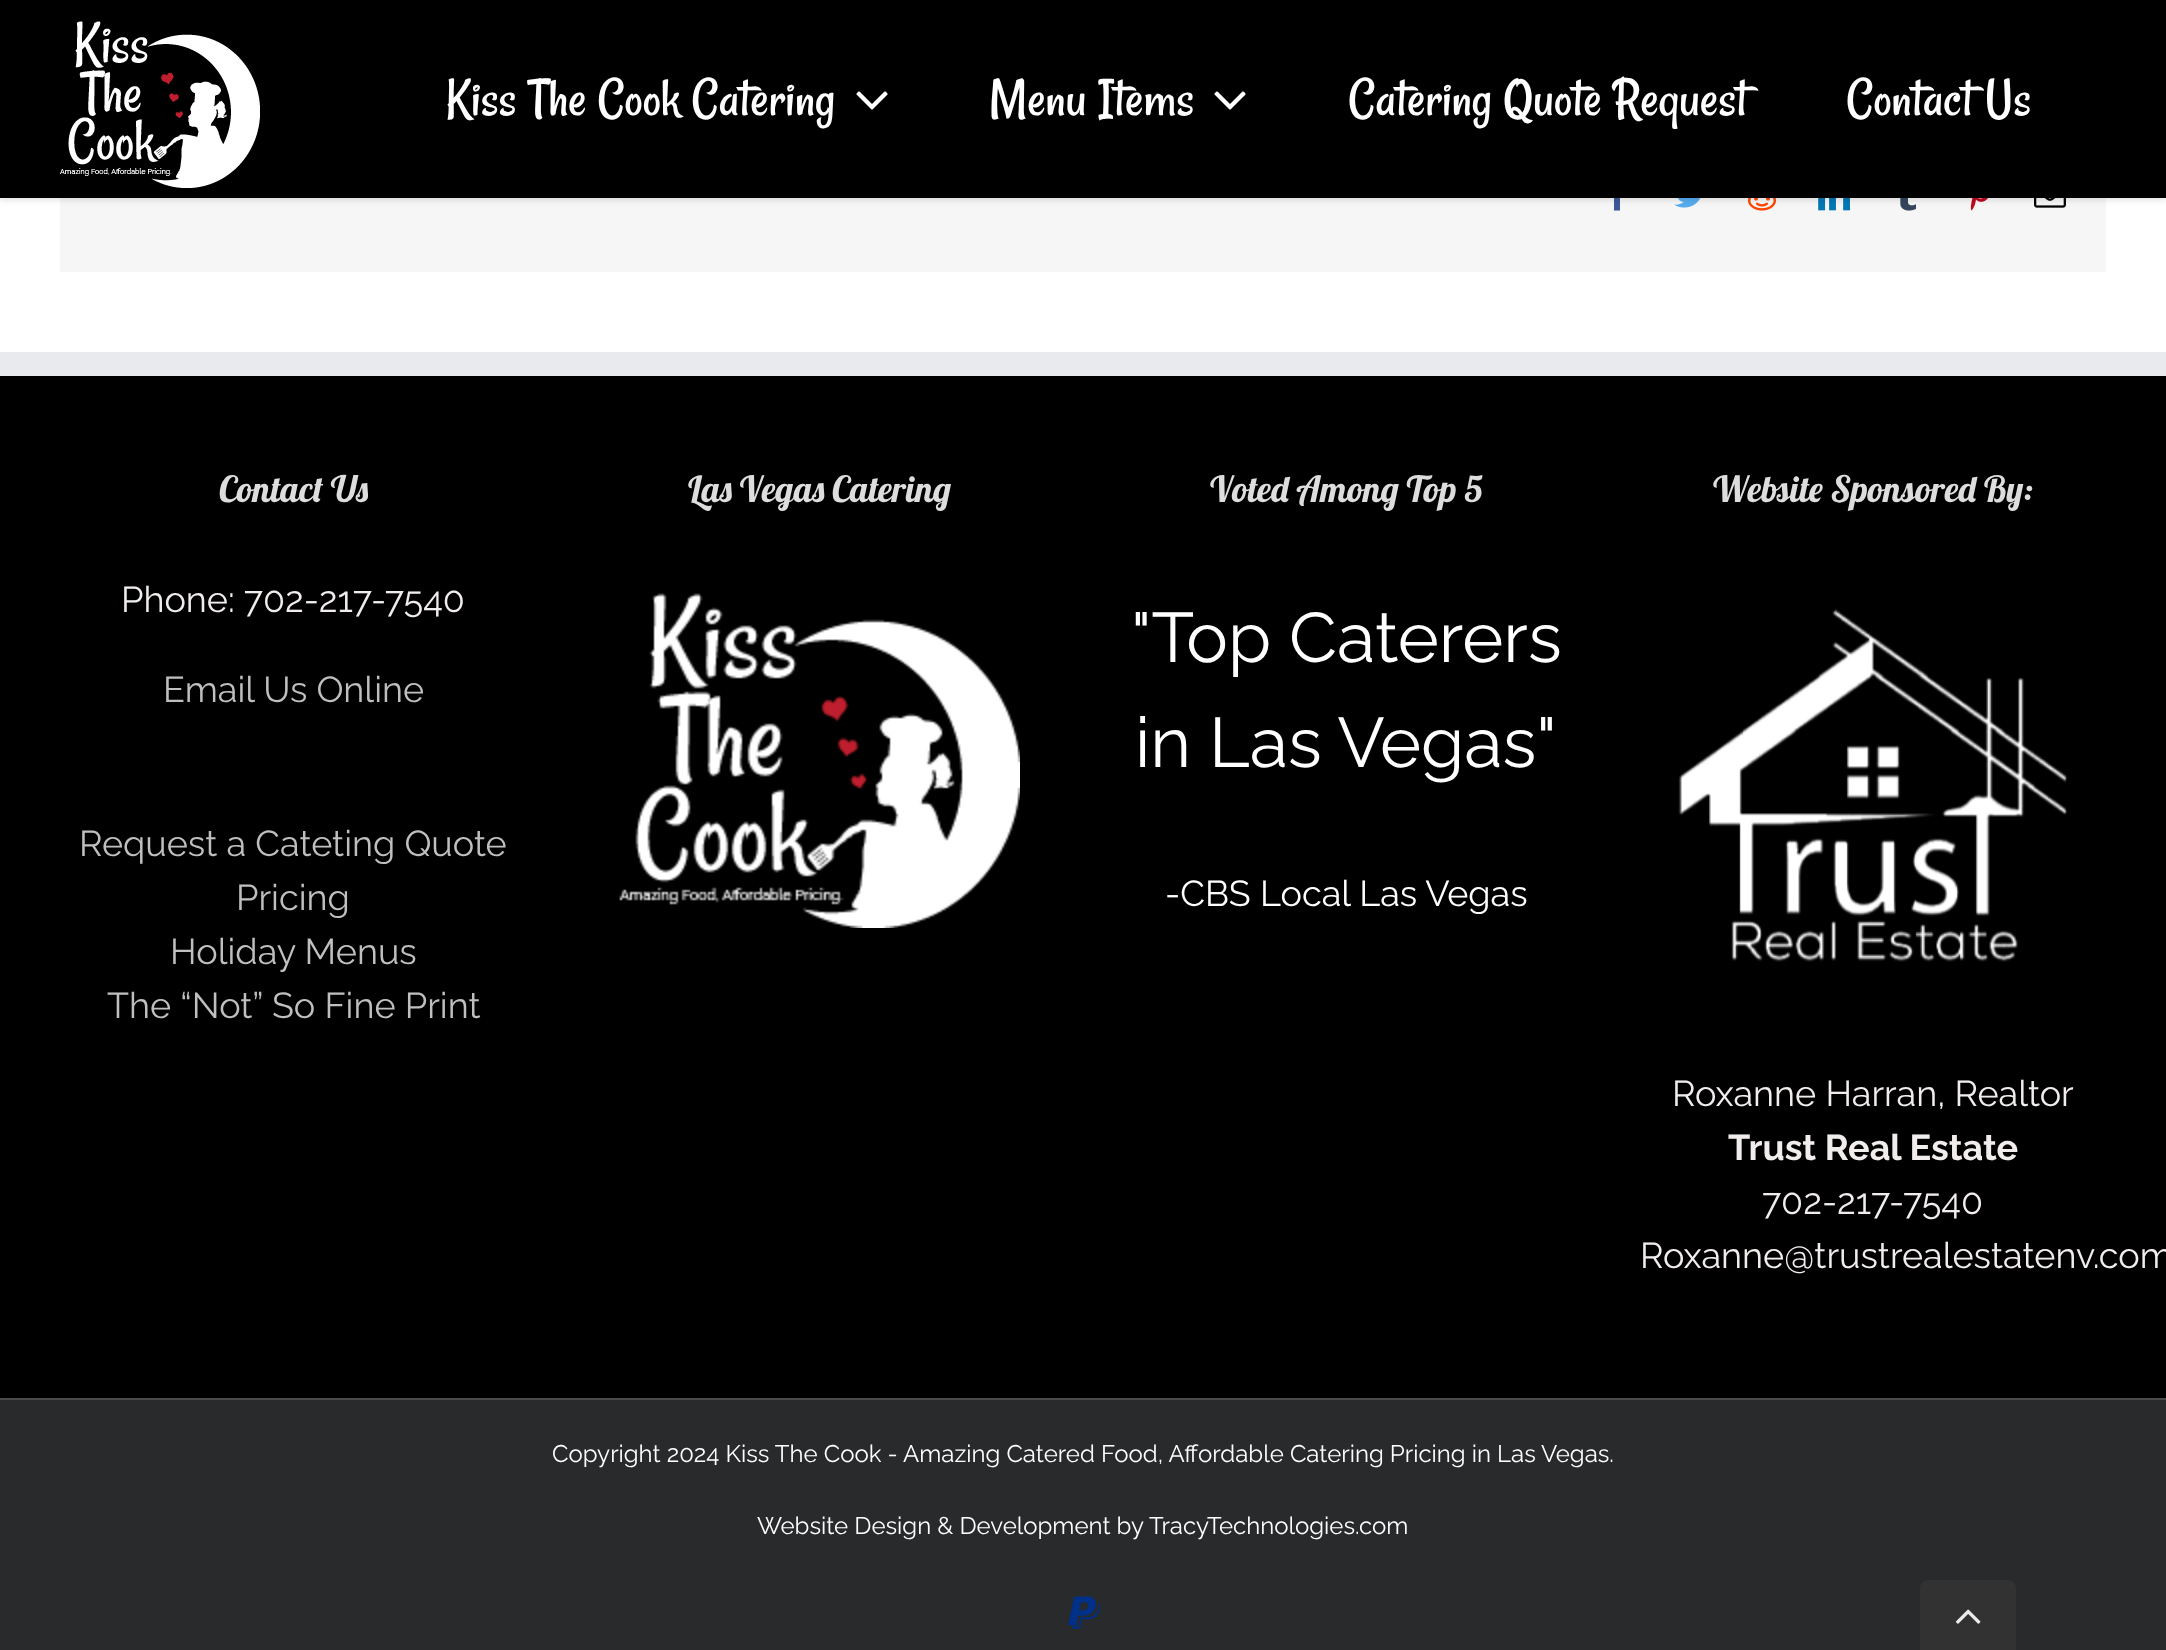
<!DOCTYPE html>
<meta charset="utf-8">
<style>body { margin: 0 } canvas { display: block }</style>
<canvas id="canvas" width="2166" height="1650"></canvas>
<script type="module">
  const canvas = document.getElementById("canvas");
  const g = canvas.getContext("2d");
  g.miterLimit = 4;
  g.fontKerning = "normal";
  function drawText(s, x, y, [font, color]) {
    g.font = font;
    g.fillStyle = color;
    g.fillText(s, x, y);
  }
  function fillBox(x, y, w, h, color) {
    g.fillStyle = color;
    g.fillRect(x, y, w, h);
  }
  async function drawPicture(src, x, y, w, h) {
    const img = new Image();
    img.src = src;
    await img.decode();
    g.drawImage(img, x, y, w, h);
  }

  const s1 = ["56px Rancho", "#FFFFFF"];
  const s2 = ["36px Lobster", "#DDDDDD"];
  const s3 = ["36px Raleway", "#F2EDED"];
  const s4 = ["36px Raleway", "#BFBFBF"];
  const s5 = ["70px Raleway", "#FFFFFF"];
  const s6 = ["36px Raleway", "#FFFFFF"];
  const s7 = ["bold 36px Raleway", "#F2EDED"];
  const s8 = ["24px Raleway", "#FFFFFF"];

  fillBox(0, 0, 2166, 1650, "#FFFFFF");
  fillBox(60, 198, 2046, 74, "#F6F6F6");
  await drawPicture("pic3.png", 1614, 198, 6, 13);
  await drawPicture("pic4.png", 1674, 198, 27, 10);
  await drawPicture("pic5.png", 1748, 198, 28, 13);
  await drawPicture("pic6.png", 1818, 198, 32, 13);
  await drawPicture("pic7.png", 1900, 198, 16, 13);
  await drawPicture("pic8.png", 1970, 198, 18, 13);
  await drawPicture("pic9.png", 2034, 198, 32, 10);
  g.fillStyle = "rgba(0, 0, 0, 0.12)";
  g.filter = "blur(3px)";
  g.beginPath();
  g.rect(0, 2, 2166, 198);
  g.fill();
  g.filter = "none";
  fillBox(0, 0, 2166, 198, "#000000");
  await drawPicture("pic1.png", 60, 21, 200, 167);
  drawText("Kiss The Cook Catering", 446, 115, s1);
  await drawPicture("pic2.png", 856, 91, 32, 19);
  drawText("Menu Items", 989, 115, s1);
  await drawPicture("pic2.png", 1214, 91, 32, 19);
  drawText("Catering Quote Request", 1349, 115, s1);
  drawText("Contact Us", 1847, 115, s1);
  fillBox(0, 376, 2166, 1022, "#000000");
  fillBox(0, 352, 2166, 24, "#E9EAEE");
  drawText("Contact Us", 219, 502, s2);
  drawText("Phone: 702-217-7540", 121, 612, s3);
  drawText("Email Us Online", 163, 702, s4);
  drawText("Request a Cateting Quote", 79, 856, s4);
  drawText("Pricing", 236, 910, s4);
  drawText("Holiday Menus", 170, 964, s4);
  drawText("The “Not” So Fine Print", 107, 1018, s4);
  drawText("Las Vegas Catering", 688, 502, s2);
  await drawPicture("pic10.png", 619, 593, 401, 335);
  drawText("Voted Among Top 5", 1210, 502, s2);
  drawText("\"Top Caterers", 1131, 662, s5);
  drawText("in Las Vegas\"", 1135, 767, s5);
  drawText("-CBS Local Las Vegas", 1165, 906, s6);
  drawText("Website Sponsored By:", 1713, 502, s2);
  await drawPicture("pic11.png", 1678, 609, 390, 353);
  drawText("Roxanne Harran, Realtor", 1672, 1106, s3);
  drawText("Trust Real Estate", 1728, 1160, s7);
  drawText("702-217-7540", 1762, 1214, s3);
  drawText("Roxanne@trustrealestatenv.com", 1640, 1268, s3);
  fillBox(0, 1400, 2166, 250, "#282A2B");
  fillBox(0, 1398, 2166, 2, "#4B4C4D");
  drawText("Copyright 2024 Kiss The Cook - Amazing Catered Food, Affordable Catering Pricing in Las Vegas.", 552, 1462, s8);
  drawText("Website Design & Development by", 757, 1534, s8);
  drawText("TracyTechnologies.com", 1149, 1534, s8);
  await drawPicture("pic12.png", 1068, 1596, 32, 33);
  g.fillStyle = "#323232";
  g.beginPath();
  g.roundRect(1920, 1580, 96, 70, [8, 8, 0, 0]);
  g.fill();
  await drawPicture("pic13.png", 1955, 1609, 26, 15);
</script>
